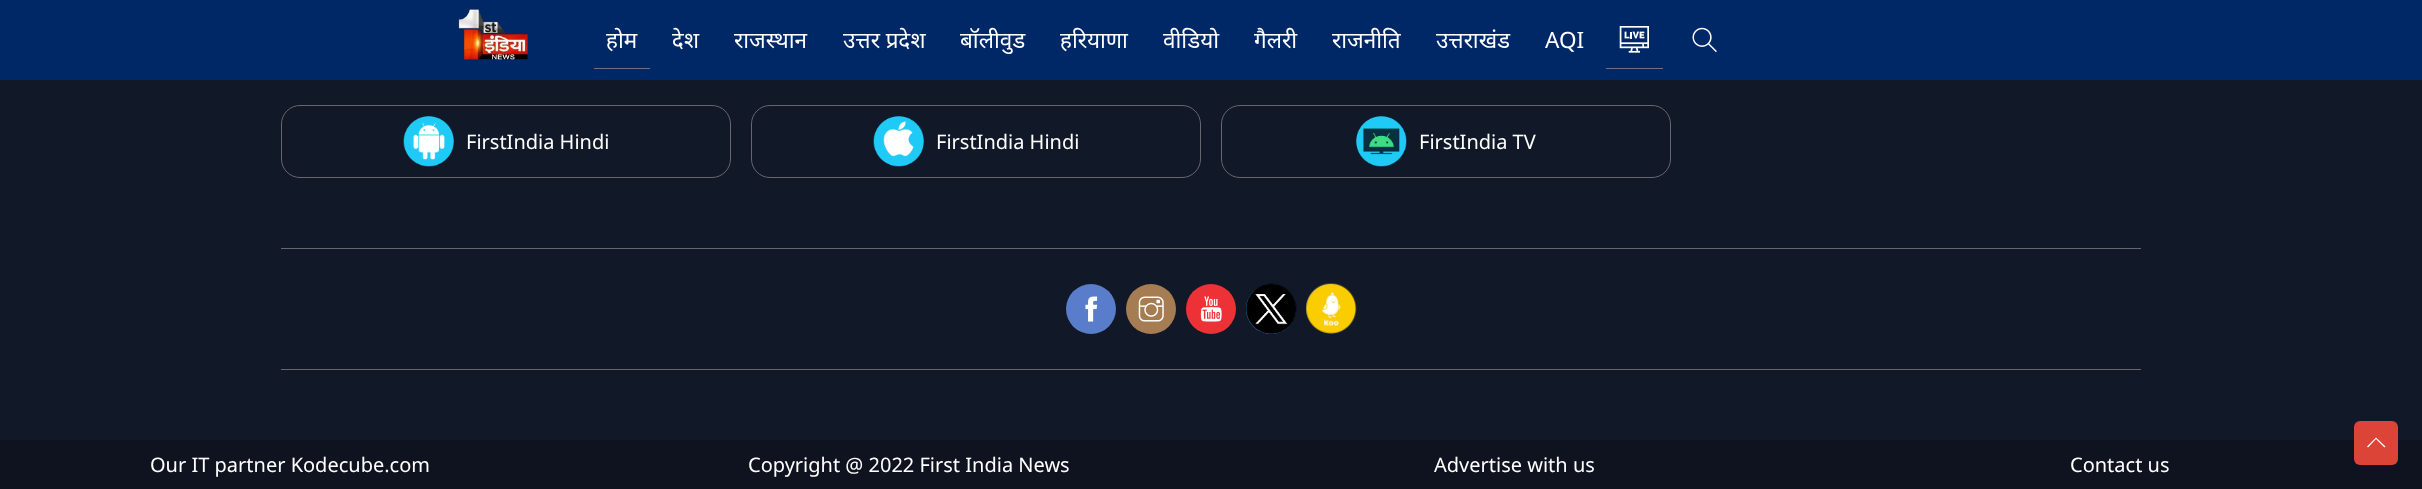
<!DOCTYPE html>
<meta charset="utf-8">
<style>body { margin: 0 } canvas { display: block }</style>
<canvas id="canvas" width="2422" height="489"></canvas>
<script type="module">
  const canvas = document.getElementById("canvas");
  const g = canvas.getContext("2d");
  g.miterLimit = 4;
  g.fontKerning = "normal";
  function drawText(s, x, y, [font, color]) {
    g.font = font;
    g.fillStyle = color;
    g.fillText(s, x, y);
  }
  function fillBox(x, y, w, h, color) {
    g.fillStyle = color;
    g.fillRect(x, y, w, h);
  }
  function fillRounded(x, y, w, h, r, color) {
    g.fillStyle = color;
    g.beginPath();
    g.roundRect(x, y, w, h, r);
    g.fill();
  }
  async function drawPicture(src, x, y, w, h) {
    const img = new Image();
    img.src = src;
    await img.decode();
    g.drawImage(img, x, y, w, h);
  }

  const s1 = ["22.5px Noto Sans", "#FFFFFF"];
  const s2 = ["20px Noto Sans", "#FFFFFF"];

  fillBox(0, 0, 2422, 489, "#111827");
  fillBox(0, 0, 2422, 80, "#002766");
  await drawPicture("pic1.png", 458, 9, 70, 51);
  fillBox(594, 68, 56, 1, "#6B7280");
  drawText("होम", 606, 48, s1);
  drawText("देश", 672, 48, s1);
  drawText("राजस्थान", 734, 48, s1);
  drawText("उत्तर प्रदेश", 843, 48, s1);
  drawText("बॉलीवुड", 960, 48, s1);
  drawText("हरियाणा", 1060, 48, s1);
  drawText("वीडियो", 1163, 48, s1);
  drawText("गैलरी", 1254, 48, s1);
  drawText("राजनीति", 1332, 48, s1);
  drawText("उत्तराखंड", 1436, 48, s1);
  drawText("AQI", 1545, 48, s1);
  fillBox(1606, 68, 57, 1, "#6B7280");
  await drawPicture("pic2.png", 1619, 26, 30, 27);
  await drawPicture("pic3.png", 1692, 27, 25, 26);
  g.beginPath();
  g.roundRect(281.5, 105.5, 449, 72, 18.5);
  g.strokeStyle = "#636770";
  g.stroke();
  await drawPicture("pic4.png", 403, 116, 51, 51);
  drawText("FirstIndia Hindi", 466, 149, s2);
  g.beginPath();
  g.roundRect(751.5, 105.5, 449, 72, 18.5);
  g.stroke();
  await drawPicture("pic5.png", 873, 116, 51, 51);
  drawText("FirstIndia Hindi", 936, 149, s2);
  g.beginPath();
  g.roundRect(1221.5, 105.5, 449, 72, 18.5);
  g.stroke();
  await drawPicture("pic6.png", 1356, 116, 51, 51);
  drawText("FirstIndia TV", 1419, 149, s2);
  fillBox(281, 248, 1860, 1, "#636770");
  fillBox(281, 369, 1860, 1, "#636770");
  g.fillStyle = "#597DCA";
  g.beginPath();
  g.arc(1091, 309, 25, 0, Math.PI * 2);
  g.fill();
  await drawPicture("pic7.png", 1085, 296, 13, 26);
  g.fillStyle = "#A67C52";
  g.beginPath();
  g.arc(1151, 309, 25, 0, Math.PI * 2);
  g.fill();
  await drawPicture("pic8.png", 1138, 296, 26, 26);
  g.fillStyle = "#ED3237";
  g.beginPath();
  g.arc(1211, 309, 25, 0, Math.PI * 2);
  g.fill();
  await drawPicture("pic9.png", 1200, 296, 22, 26);
  g.fillStyle = "#1DA1F2";
  g.beginPath();
  g.arc(1271, 309, 25, 0, Math.PI * 2);
  g.fill();
  await drawPicture("pic10.png", 1246, 283, 51, 51);
  await drawPicture("pic11.png", 1306, 283, 51, 51);
  fillBox(0, 440, 2422, 49, "#0E131F");
  drawText("Our IT partner Kodecube.com", 150, 472, s2);
  drawText("Copyright @ 2022 First India News", 748, 472, s2);
  drawText("Advertise with us", 1434, 472, s2);
  drawText("Contact us", 2070, 472, s2);
  fillRounded(2354, 421, 44, 44, 6, "#DB4437");
  g.fillStyle = "#FFFFFF";
  g.beginPath();
  g.moveTo(2385.5, 446.5);
  g.lineTo(2384.5, 447.5);
  g.lineTo(2376, 439);
  g.lineTo(2368, 447.5);
  g.lineTo(2367, 446.5);
  g.lineTo(2376, 437.5);
  g.closePath();
  g.fill();
</script>
